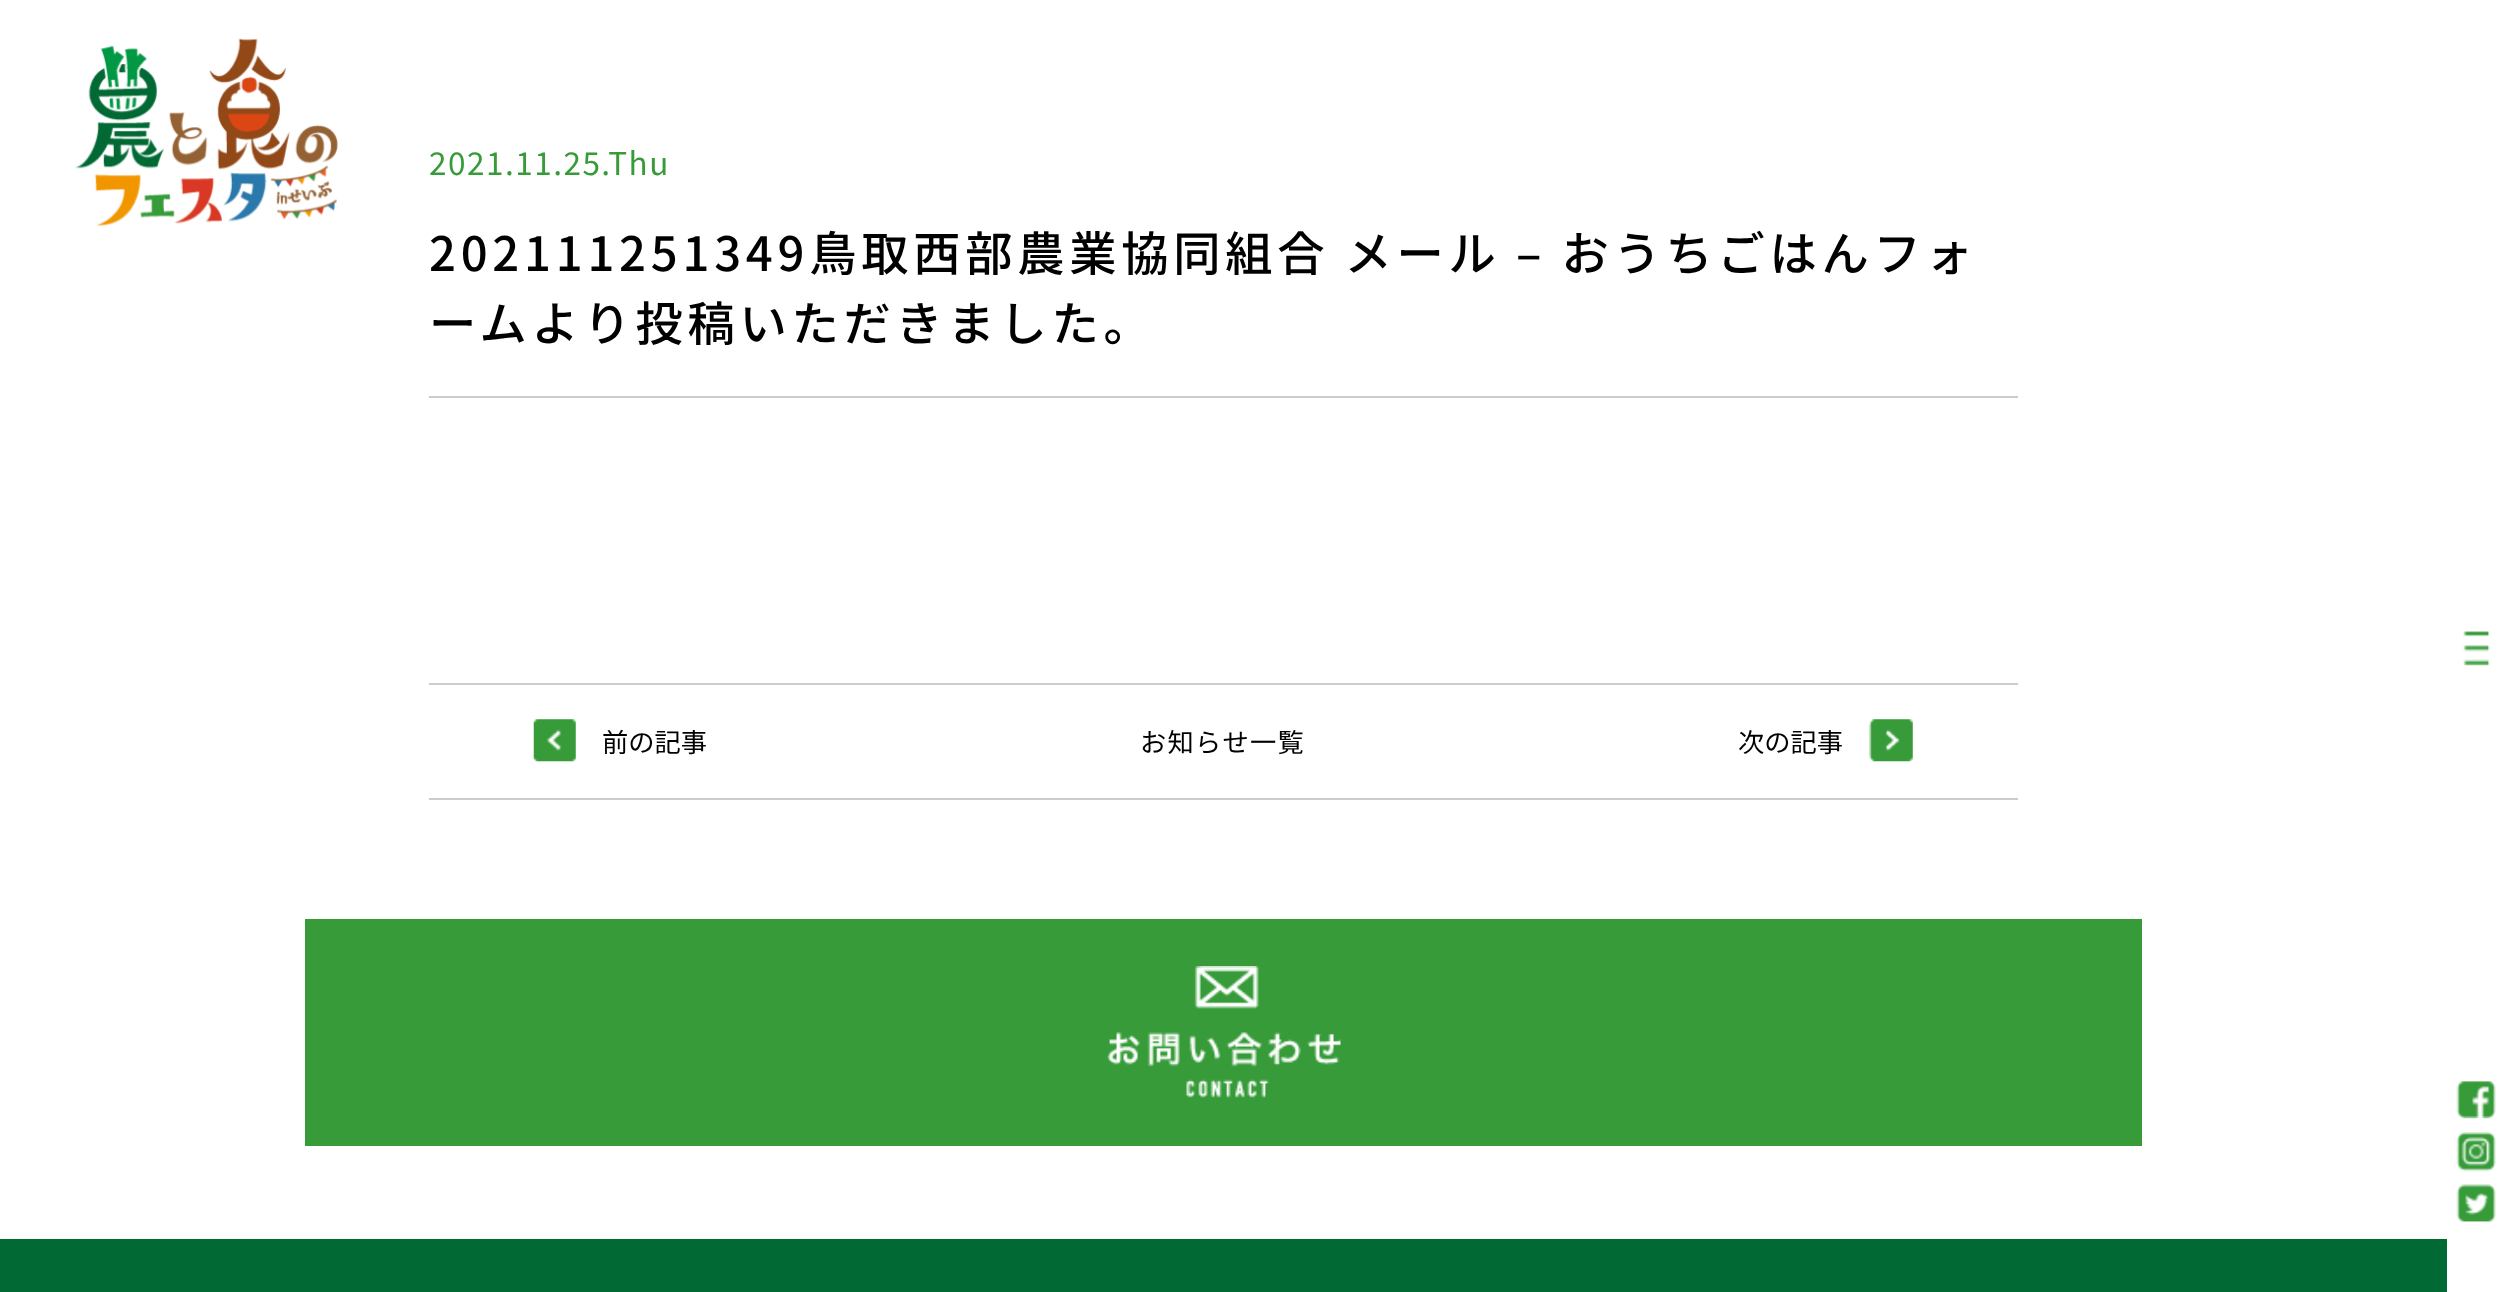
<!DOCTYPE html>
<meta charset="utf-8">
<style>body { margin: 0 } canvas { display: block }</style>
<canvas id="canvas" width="2504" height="1292"></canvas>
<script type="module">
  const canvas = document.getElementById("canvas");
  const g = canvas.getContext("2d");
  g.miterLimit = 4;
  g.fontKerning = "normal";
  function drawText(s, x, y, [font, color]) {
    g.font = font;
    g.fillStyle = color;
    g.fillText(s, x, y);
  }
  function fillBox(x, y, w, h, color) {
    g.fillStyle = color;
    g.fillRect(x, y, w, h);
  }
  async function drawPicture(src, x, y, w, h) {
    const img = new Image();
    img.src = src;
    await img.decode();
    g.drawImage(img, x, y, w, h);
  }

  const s1 = ["31.5px Noto Sans CJK JP", "#369B38"];
  const s2 = ["500 47.25px Noto Sans JP", "#000000"];
  const s3 = ["26.25px Noto Sans CJK JP", "#000000"];

  fillBox(0, 0, 2504, 1292, "#FFFFFF");
  await drawPicture("pic1.png", 75, 38, 263, 188);
  g.letterSpacing = "1.5px";
  drawText("2021.11.25.Thu", 429, 175, s1);
  g.letterSpacing = "4.75px";
  drawText("202111251349鳥取西部農業協同組合 メール – おうちごはんフォ", 429, 271, s2);
  drawText("ームより投稿いただきました。", 429, 341, s2);
  fillBox(429, 396, 1589, 2, "#CCCCCC");
  fillBox(429, 683, 1589, 2, "#CCCCCC");
  fillBox(429, 798, 1589, 2, "#CCCCCC");
  await drawPicture("pic2.png", 533, 719, 43, 43);
  g.letterSpacing = "0px";
  drawText("前の記事", 602, 752, s3);
  g.letterSpacing = "1.25px";
  drawText("お知らせ一覧", 1140, 752, s3);
  g.letterSpacing = "0px";
  drawText("次の記事", 1738, 752, s3);
  await drawPicture("pic3.png", 1869, 719, 44, 43);
  fillBox(305, 919, 1837, 227, "#369B38");
  await drawPicture("pic4.png", 1107, 966, 234, 132);
  await drawPicture("pic5.png", 2463, 631, 27, 35);
  await drawPicture("pic6.png", 2456, 1081, 40, 38);
  await drawPicture("pic7.png", 2456, 1132, 40, 40);
  await drawPicture("pic8.png", 2456, 1184, 40, 38);
  fillBox(0, 1239, 2447, 53, "#006934");
</script>
